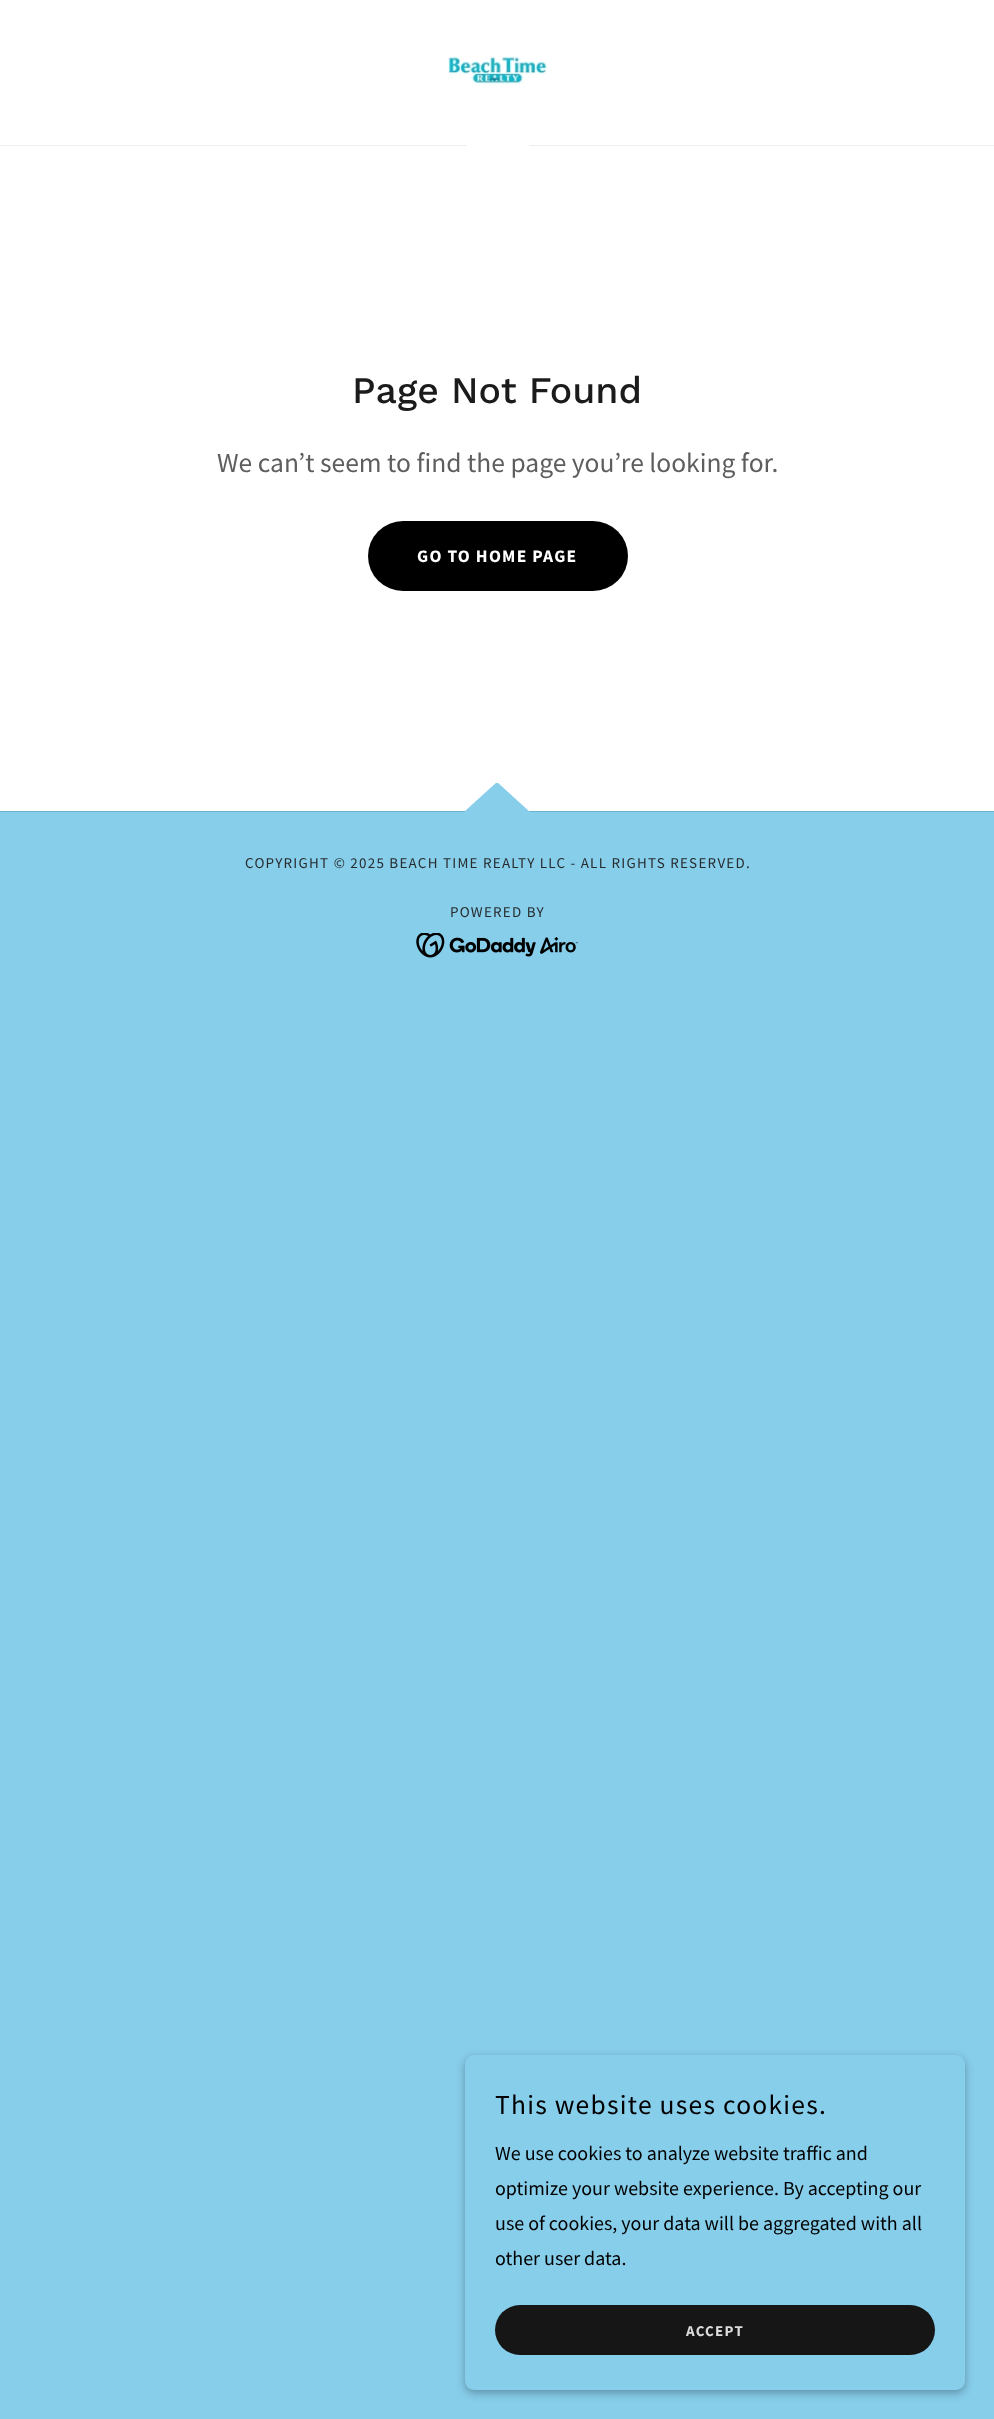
<!DOCTYPE html>
<meta charset="utf-8">
<style>body { margin: 0 } canvas { display: block }</style>
<canvas id="canvas" width="994" height="2419"></canvas>
<script type="module">
  const canvas = document.getElementById("canvas");
  const g = canvas.getContext("2d");
  g.miterLimit = 4;
  g.fontKerning = "normal";
  function drawText(s, x, y, [font, color]) {
    g.font = font;
    g.fillStyle = color;
    g.fillText(s, x, y);
  }
  function fillBox(x, y, w, h, color) {
    g.fillStyle = color;
    g.fillRect(x, y, w, h);
  }
  function fillRounded(x, y, w, h, r, color) {
    g.fillStyle = color;
    g.beginPath();
    g.roundRect(x, y, w, h, r);
    g.fill();
  }
  async function drawPicture(src, x, y, w, h) {
    const img = new Image();
    img.src = src;
    await img.decode();
    g.drawImage(img, x, y, w, h);
  }

  const s1 = ["500 37.5px Work Sans", "#1B1B1B"];
  const s2 = ["27.5px Source Sans Pro", "#5E5E5E"];
  const s3 = ["bold 17.5px Source Sans Pro", "#FFFFFF"];
  const s4 = ["15px Source Sans Pro", "#272B2D"];
  const s5 = ["27.5px Source Sans Pro", "#000000"];
  const s6 = ["20px Source Sans Pro", "#000000"];
  const s7 = ["bold 15px Source Sans Pro", "#DBDBDB"];

  fillBox(0, 0, 994, 2419, "#87CEEB");
  fillBox(0, 0, 994, 145, "#FFFFFF");
  fillBox(0, 145, 994, 1, "#EFEFEF");
  await drawPicture("pic1.png", 448, 56, 100, 29);
  fillBox(0, 146, 994, 665, "#FFFFFF");
  g.beginPath();
  g.moveTo(498, 174);
  g.lineTo(531, 144);
  g.lineTo(465, 144);
  g.closePath();
  g.fill("evenodd");
  drawText("Page Not Found", 352, 403, s1);
  drawText("We can’t seem to find the page you’re looking for.", 217, 472, s2);
  fillRounded(368, 521, 260, 70, 35, "#000000");
  g.letterSpacing = "1.25px";
  drawText("GO TO HOME PAGE", 417, 562, s3);
  fillBox(0, 811, 994, 1, "#6CB2CE");
  g.save();
  g.beginPath();
  g.rect(465, 783, 66, 30);
  g.clip();
  g.fillStyle = "#87CEEB";
  g.beginPath();
  g.moveTo(497, 782);
  g.lineTo(464, 812);
  g.lineTo(530, 812);
  g.closePath();
  g.fill("evenodd");
  g.restore();
  drawText("COPYRIGHT © 2025 BEACH TIME REALTY LLC - ALL RIGHTS RESERVED.", 245, 868, s4);
  drawText("POWERED BY", 450, 917, s4);
  await drawPicture("pic2.png", 416, 933, 162, 25);
  g.fillStyle = "rgba(0, 0, 0, 0.3)";
  g.filter = "blur(4px)";
  g.beginPath();
  g.roundRect(465, 2058, 500, 335, 9);
  g.fill();
  g.filter = "none";
  fillRounded(465, 2055, 500, 335, 9, "#87CEEB");
  drawText("This website uses cookies.", 495, 2114, s5);
  g.letterSpacing = "0px";
  drawText("We use cookies to analyze website traffic and", 495, 2160, s6);
  drawText("optimize your website experience. By accepting our", 495, 2195, s6);
  drawText("use of cookies, your data will be aggregated with all", 495, 2230, s6);
  drawText("other user data.", 495, 2265, s6);
  fillRounded(495, 2305, 440, 50, 25, "#161616");
  g.letterSpacing = "1.25px";
  drawText("ACCEPT", 686, 2336, s7);
</script>
